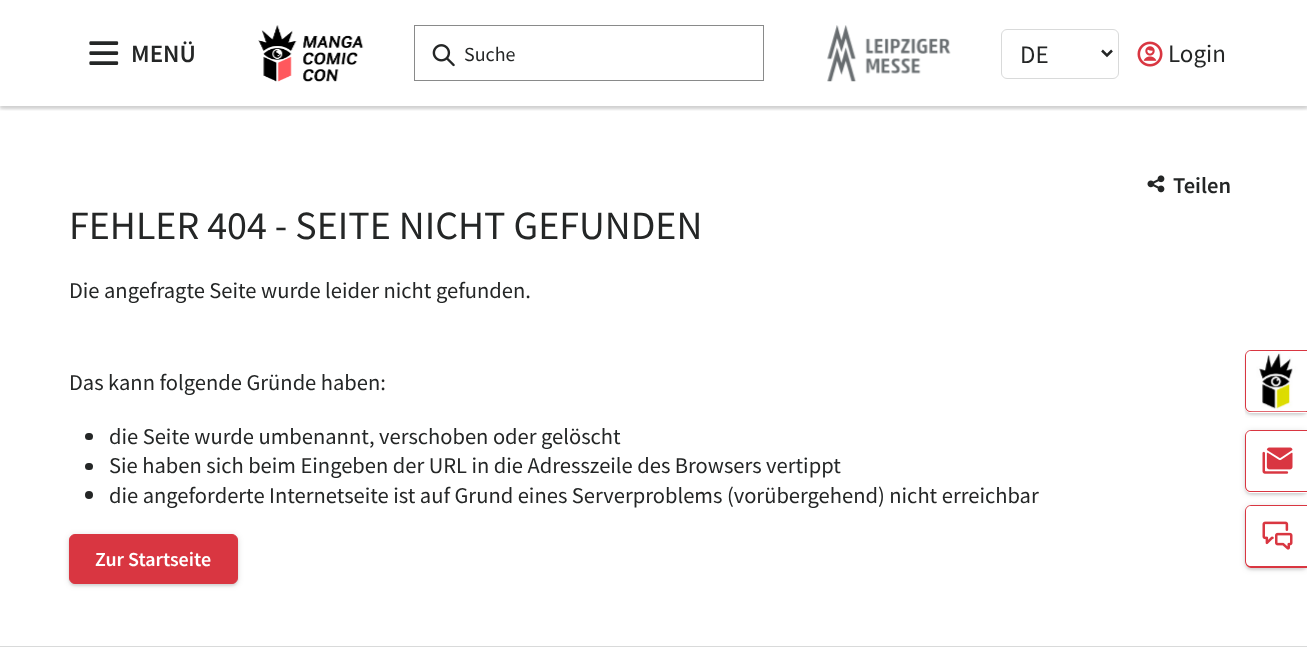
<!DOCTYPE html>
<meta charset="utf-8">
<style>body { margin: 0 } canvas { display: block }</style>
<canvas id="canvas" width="1307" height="667"></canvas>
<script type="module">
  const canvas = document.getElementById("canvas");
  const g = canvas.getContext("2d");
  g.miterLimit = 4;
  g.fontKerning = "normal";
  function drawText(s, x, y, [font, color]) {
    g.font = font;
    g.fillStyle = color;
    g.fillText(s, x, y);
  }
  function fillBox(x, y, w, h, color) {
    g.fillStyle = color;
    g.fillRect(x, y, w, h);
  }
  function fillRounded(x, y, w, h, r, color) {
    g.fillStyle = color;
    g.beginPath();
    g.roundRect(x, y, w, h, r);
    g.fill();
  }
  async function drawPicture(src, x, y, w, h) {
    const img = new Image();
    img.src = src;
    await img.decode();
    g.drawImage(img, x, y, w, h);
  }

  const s1 = ["600 25px Source Sans Pro", "#242626"];
  const s2 = ["20px Source Sans Pro", "#242626"];
  const s3 = ["25px Source Sans Pro", "#242626"];
  const s4 = ["600 22.5px Source Sans Pro", "#242626"];
  const s5 = ["40px Source Sans Pro", "#242626"];
  const s6 = ["22.5px Source Sans Pro", "#242626"];
  const s7 = ["600 20px Source Sans Pro", "#FFFFFF"];

  fillBox(0, 0, 1307, 667, "#FFFFFF");
  g.save();
  g.beginPath();
  g.rect(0, 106, 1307, 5);
  g.clip();
  g.fillStyle = "rgba(0, 0, 0, 0.12)";
  g.filter = "blur(3px)";
  g.beginPath();
  g.rect(0, 1, 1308, 107);
  g.fill();
  g.filter = "none";
  g.restore();
  g.save();
  g.beginPath();
  g.rect(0, 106, 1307, 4);
  g.clip();
  g.fillStyle = "rgba(0, 0, 0, 0.1)";
  g.filter = "blur(1px)";
  g.beginPath();
  g.rect(0, 3, 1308, 106);
  g.fill();
  g.filter = "none";
  g.restore();
  await drawPicture("pic1.png", 89, 41, 30, 24);
  drawText("MENÜ", 131, 62, s1);
  await drawPicture("pic2.png", 258, 25, 106, 57);
  g.strokeStyle = "#898A8A";
  g.strokeRect(414.5, 25.5, 349, 55);
  await drawPicture("pic3.png", 432, 44, 23, 23);
  drawText("Suche", 464, 61, s2);
  await drawPicture("pic4.png", 827, 25, 124, 57);
  g.beginPath();
  g.roundRect(1001.5, 29.5, 117, 49, 5.5);
  g.strokeStyle = "#D9DADA";
  g.stroke();
  g.beginPath();
  g.moveTo(1102, 50.5);
  g.lineTo(1107, 55.5);
  g.lineTo(1112, 50.5);
  g.strokeStyle = "#242626";
  g.lineWidth = 2.5;
  g.stroke();
  drawText("DE", 1020, 63, s3);
  await drawPicture("pic5.png", 1137, 41, 26, 26);
  drawText("Login", 1168, 62, s3);
  await drawPicture("pic6.png", 1147, 175, 18, 18);
  drawText("Teilen", 1173, 193, s4);
  drawText("FEHLER 404 - SEITE NICHT GEFUNDEN", 69, 239, s5);
  drawText("Die angefragte Seite wurde leider nicht gefunden.", 69, 298, s6);
  drawText("Das kann folgende Gründe haben:", 69, 390, s6);
  fillRounded(85, 433, 8, 7, 3.5, "#242626");
  drawText("die Seite wurde umbenannt, verschoben oder gelöscht", 109, 444, s6);
  fillRounded(85, 463, 8, 7, 3.5, "#242626");
  drawText("Sie haben sich beim Eingeben der URL in die Adresszeile des Browsers vertippt", 109, 473, s6);
  g.beginPath();
  g.arc(89, 495, 4, 0, Math.PI * 2);
  g.fill();
  drawText("die angeforderte Internetseite ist auf Grund eines Serverproblems (vorübergehend) nicht erreichbar", 109, 503, s6);
  g.fillStyle = "rgba(0, 0, 0, 0.12)";
  g.filter = "blur(3px)";
  g.beginPath();
  g.roundRect(69, 535, 169, 50, 6);
  g.fill();
  g.filter = "none";
  g.fillStyle = "rgba(0, 0, 0, 0.1)";
  g.filter = "blur(1px)";
  g.beginPath();
  g.roundRect(69, 536, 169, 50, 6);
  g.fill();
  g.filter = "none";
  g.fillStyle = "#D93641";
  g.beginPath();
  g.roundRect(69.5, 534.5, 168, 49, 5.5);
  g.fill();
  g.strokeStyle = "#D93641";
  g.lineWidth = 1;
  g.stroke();
  drawText("Zur Startseite", 95, 566, s7);
  g.save();
  g.beginPath();
  g.rect(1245, 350, 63, 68);
  g.clip();
  g.fillStyle = "rgba(0, 0, 0, 0.12)";
  g.filter = "blur(3px)";
  g.beginPath();
  g.roundRect(1245, 351, 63, 63, 6);
  g.fill();
  g.filter = "none";
  g.restore();
  g.fillStyle = "rgba(0, 0, 0, 0.1)";
  g.filter = "blur(1px)";
  g.beginPath();
  g.roundRect(1245, 353, 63, 62, 6);
  g.fill();
  g.filter = "none";
  g.fillStyle = "#FFFFFF";
  g.beginPath();
  g.moveTo(1251, 350);
  g.lineTo(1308, 350);
  g.lineTo(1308, 413);
  g.lineTo(1251, 413);
  g.bezierCurveTo(1247.5, 413, 1245, 410.5, 1245, 407);
  g.lineTo(1245, 356);
  g.bezierCurveTo(1245, 352.5, 1247.5, 350, 1251, 350);
  g.closePath();
  g.fill();
  g.fillStyle = "#D93641";
  g.beginPath();
  g.moveTo(1251, 350);
  g.lineTo(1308, 350);
  g.lineTo(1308, 412);
  g.lineTo(1251, 412);
  g.bezierCurveTo(1248, 412, 1245, 410, 1245, 406);
  g.lineTo(1245, 356);
  g.bezierCurveTo(1245, 353, 1248, 350, 1251, 350);
  g.closePath();
  g.moveTo(1251, 351);
  g.lineTo(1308, 351);
  g.lineTo(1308, 411);
  g.lineTo(1251, 411);
  g.bezierCurveTo(1248, 411, 1246, 409, 1246, 406);
  g.lineTo(1246, 356);
  g.bezierCurveTo(1246, 353, 1248, 351, 1251, 351);
  g.closePath();
  g.fill("evenodd");
  await drawPicture("pic7.png", 1246, 351, 61, 61);
  g.fillStyle = "rgba(0, 0, 0, 0.12)";
  g.filter = "blur(3px)";
  g.beginPath();
  g.roundRect(1245, 431, 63, 63, 6);
  g.fill();
  g.filter = "none";
  g.fillStyle = "rgba(0, 0, 0, 0.1)";
  g.filter = "blur(1px)";
  g.beginPath();
  g.roundRect(1245, 433, 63, 62, 6);
  g.fill();
  g.filter = "none";
  g.fillStyle = "#FFFFFF";
  g.beginPath();
  g.moveTo(1251, 430);
  g.lineTo(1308, 430);
  g.lineTo(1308, 493);
  g.lineTo(1251, 493);
  g.bezierCurveTo(1247.5, 493, 1245, 490.5, 1245, 487);
  g.lineTo(1245, 436);
  g.bezierCurveTo(1245, 432.5, 1247.5, 430, 1251, 430);
  g.closePath();
  g.fill();
  g.fillStyle = "#D93641";
  g.beginPath();
  g.moveTo(1251, 430);
  g.lineTo(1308, 430);
  g.lineTo(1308, 492);
  g.lineTo(1251, 492);
  g.bezierCurveTo(1248, 492, 1245, 490, 1245, 486);
  g.lineTo(1245, 436);
  g.bezierCurveTo(1245, 433, 1248, 430, 1251, 430);
  g.closePath();
  g.moveTo(1251, 431);
  g.lineTo(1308, 431);
  g.lineTo(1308, 491);
  g.lineTo(1251, 491);
  g.bezierCurveTo(1248, 491, 1246, 489, 1246, 486);
  g.lineTo(1246, 436);
  g.bezierCurveTo(1246, 433, 1248, 431, 1251, 431);
  g.closePath();
  g.fill("evenodd");
  await drawPicture("pic8.png", 1262, 447, 31, 27);
  g.fillStyle = "rgba(0, 0, 0, 0.12)";
  g.filter = "blur(3px)";
  g.beginPath();
  g.roundRect(1245, 506, 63, 63, 6);
  g.fill();
  g.filter = "none";
  g.fillStyle = "rgba(0, 0, 0, 0.1)";
  g.filter = "blur(1px)";
  g.beginPath();
  g.roundRect(1245, 508, 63, 62, 6);
  g.fill();
  g.filter = "none";
  g.fillStyle = "#FFFFFF";
  g.beginPath();
  g.moveTo(1251, 505);
  g.lineTo(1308, 505);
  g.lineTo(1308, 568);
  g.lineTo(1251, 568);
  g.bezierCurveTo(1247.5, 568, 1245, 565.5, 1245, 562);
  g.lineTo(1245, 511);
  g.bezierCurveTo(1245, 507.5, 1247.5, 505, 1251, 505);
  g.closePath();
  g.fill();
  g.fillStyle = "#D93641";
  g.beginPath();
  g.moveTo(1251, 505);
  g.lineTo(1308, 505);
  g.lineTo(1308, 568);
  g.lineTo(1251, 568);
  g.bezierCurveTo(1248, 568, 1245, 565, 1245, 561);
  g.lineTo(1245, 511);
  g.bezierCurveTo(1245, 508, 1248, 505, 1251, 505);
  g.closePath();
  g.moveTo(1251, 506);
  g.lineTo(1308, 506);
  g.lineTo(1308, 566);
  g.lineTo(1251, 566);
  g.bezierCurveTo(1248, 566, 1246, 564, 1246, 561);
  g.lineTo(1246, 511);
  g.bezierCurveTo(1246, 508, 1248, 506, 1251, 506);
  g.closePath();
  g.fill("evenodd");
  await drawPicture("pic9.png", 1262, 521, 31, 29);
  fillBox(0, 646, 1307, 1, "#D9DADA");
</script>
